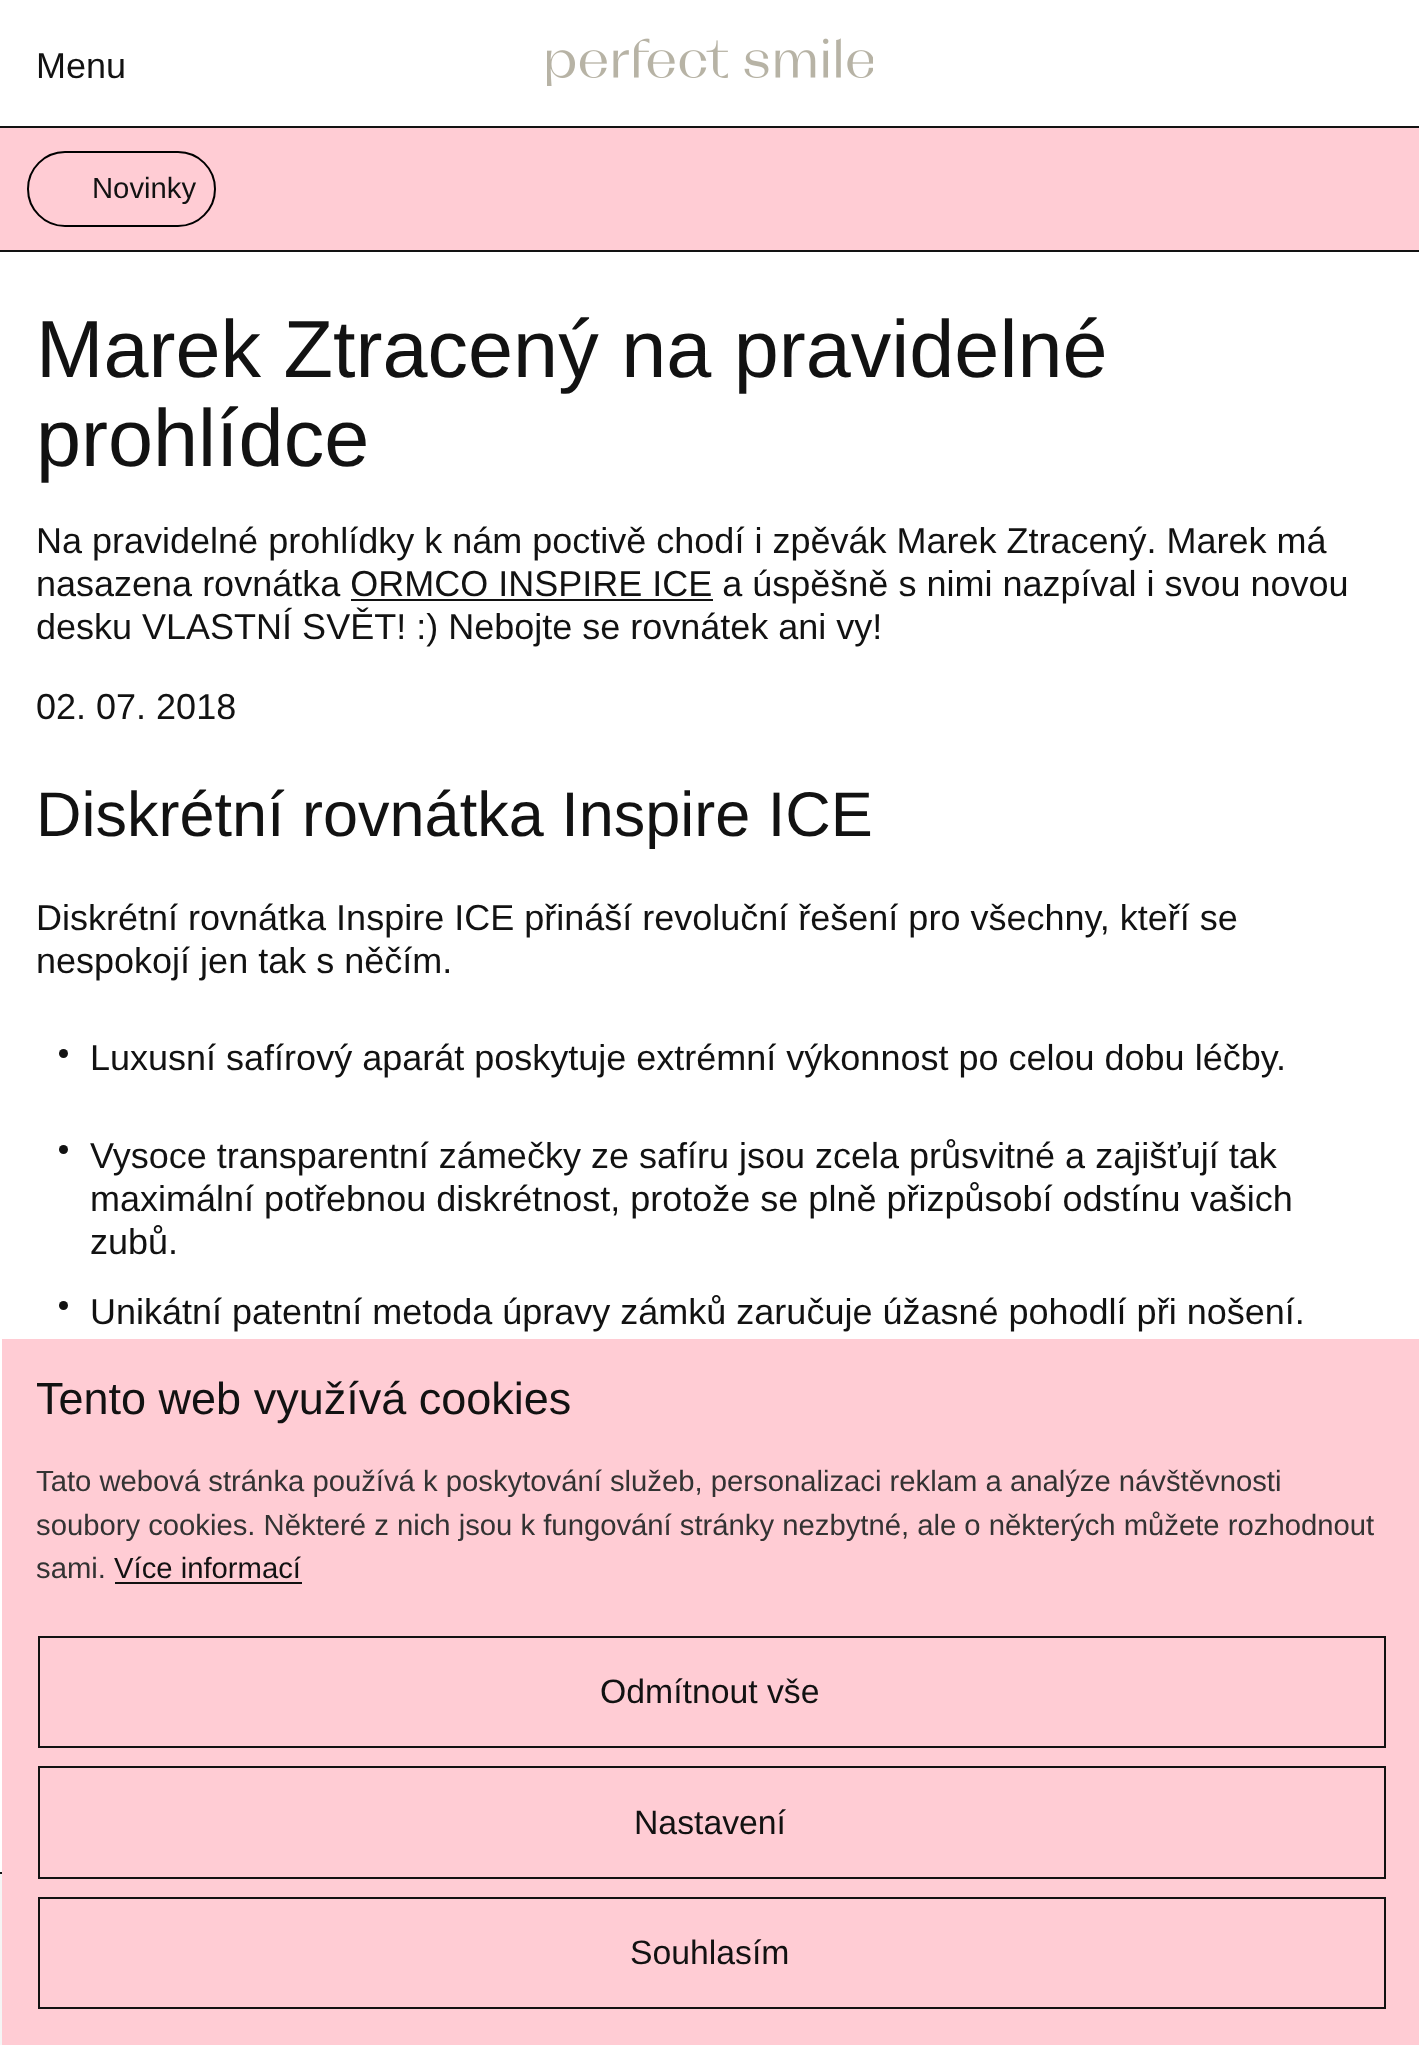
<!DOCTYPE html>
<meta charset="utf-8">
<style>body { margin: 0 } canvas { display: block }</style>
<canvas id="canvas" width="1419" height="2045"></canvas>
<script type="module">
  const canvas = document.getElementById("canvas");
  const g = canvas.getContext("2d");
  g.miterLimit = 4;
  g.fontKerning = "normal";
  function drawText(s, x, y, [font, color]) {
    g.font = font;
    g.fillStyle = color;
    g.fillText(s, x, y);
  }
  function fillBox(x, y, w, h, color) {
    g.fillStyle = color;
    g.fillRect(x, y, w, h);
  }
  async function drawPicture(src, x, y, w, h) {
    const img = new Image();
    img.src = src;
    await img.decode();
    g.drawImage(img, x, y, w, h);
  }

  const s1 = ["36px Liberation Sans", "#121212"];
  const s2 = ["29.25px Liberation Sans", "#121212"];
  const s3 = ["81px Liberation Sans", "#121212"];
  const s4 = ["63px Liberation Sans", "#121212"];
  const s5 = ["45px Liberation Sans", "#121212"];
  const s6 = ["29.25px Liberation Sans", "#333333"];
  const s7 = ["33.75px Liberation Sans", "#121212"];

  fillBox(0, 0, 1419, 2045, "#FFFFFF");
  drawText("Menu", 36, 78, s1);
  await drawPicture("pic1.png", 547, 38, 326, 48);
  fillBox(0, 126, 1419, 2, "#121212");
  fillBox(0, 250, 1419, 2, "#121212");
  fillBox(0, 128, 1419, 122, "#FFCCD4");
  g.beginPath();
  g.roundRect(28, 152, 187, 74, 37);
  g.strokeStyle = "#000000";
  g.lineWidth = 2;
  g.stroke();
  drawText("Novinky", 92, 198, s2);
  drawText("Marek Ztracený na pravidelné", 36, 377, s3);
  drawText("prohlídce", 36, 466, s3);
  drawText("Na pravidelné prohlídky k nám poctivě chodí i zpěvák Marek Ztracený. Marek má", 36, 553, s1);
  drawText("nasazena rovnátka ORMCO INSPIRE ICE a úspěšně s nimi nazpíval i svou novou", 36, 596, s1);
  fillBox(351, 599, 362, 2, "#121212");
  drawText("desku VLASTNÍ SVĚT! :) Nebojte se rovnátek ani vy!", 36, 639, s1);
  drawText("02. 07. 2018", 36, 719, s1);
  drawText("Diskrétní rovnátka Inspire ICE", 36, 836, s4);
  drawText("Diskrétní rovnátka Inspire ICE přináší revoluční řešení pro všechny, kteří se", 36, 930, s1);
  drawText("nespokojí jen tak s něčím.", 36, 973, s1);
  g.beginPath();
  g.arc(63.5, 1053.5, 4.5, 0, Math.PI * 2);
  g.fill();
  drawText("Luxusní safírový aparát poskytuje extrémní výkonnost po celou dobu léčby.", 90, 1070, s1);
  g.beginPath();
  g.arc(63.5, 1149.5, 4.5, 0, Math.PI * 2);
  g.fill();
  drawText("Vysoce transparentní zámečky ze safíru jsou zcela průsvitné a zajišťují tak", 90, 1168, s1);
  drawText("maximální potřebnou diskrétnost, protože se plně přizpůsobí odstínu vašich", 90, 1211, s1);
  drawText("zubů.", 90, 1254, s1);
  g.beginPath();
  g.arc(63.5, 1305.5, 4.5, 0, Math.PI * 2);
  g.fill();
  drawText("Unikátní patentní metoda úpravy zámků zaručuje úžasné pohodlí při nošení.", 90, 1324, s1);
  fillBox(0, 1872, 2, 2, "#121212");
  fillBox(0, 1874, 2, 171, "#F5F5F5");
  fillBox(2, 1339, 1417, 706, "#FFCCD4");
  drawText("Tento web využívá cookies", 36, 1414, s5);
  drawText("Tato webová stránka používá k poskytování služeb, personalizaci reklam a analýze návštěvnosti", 36, 1491, s6);
  drawText("soubory cookies. Některé z nich jsou k fungování stránky nezbytné, ale o některých můžete rozhodnout", 36, 1535, s6);
  drawText("sami.", 36, 1578, s6);
  drawText("Více informací", 114, 1578, s2);
  fillBox(115, 1582, 187, 2, "#121212");
  g.strokeStyle = "#121212";
  g.strokeRect(39, 1637, 1346, 110);
  drawText("Odmítnout vše", 600, 1703, s7);
  g.strokeRect(39, 1767, 1346, 111);
  drawText("Nastavení", 634, 1834, s7);
  g.strokeRect(39, 1898, 1346, 110);
  drawText("Souhlasím", 630, 1964, s7);
</script>
